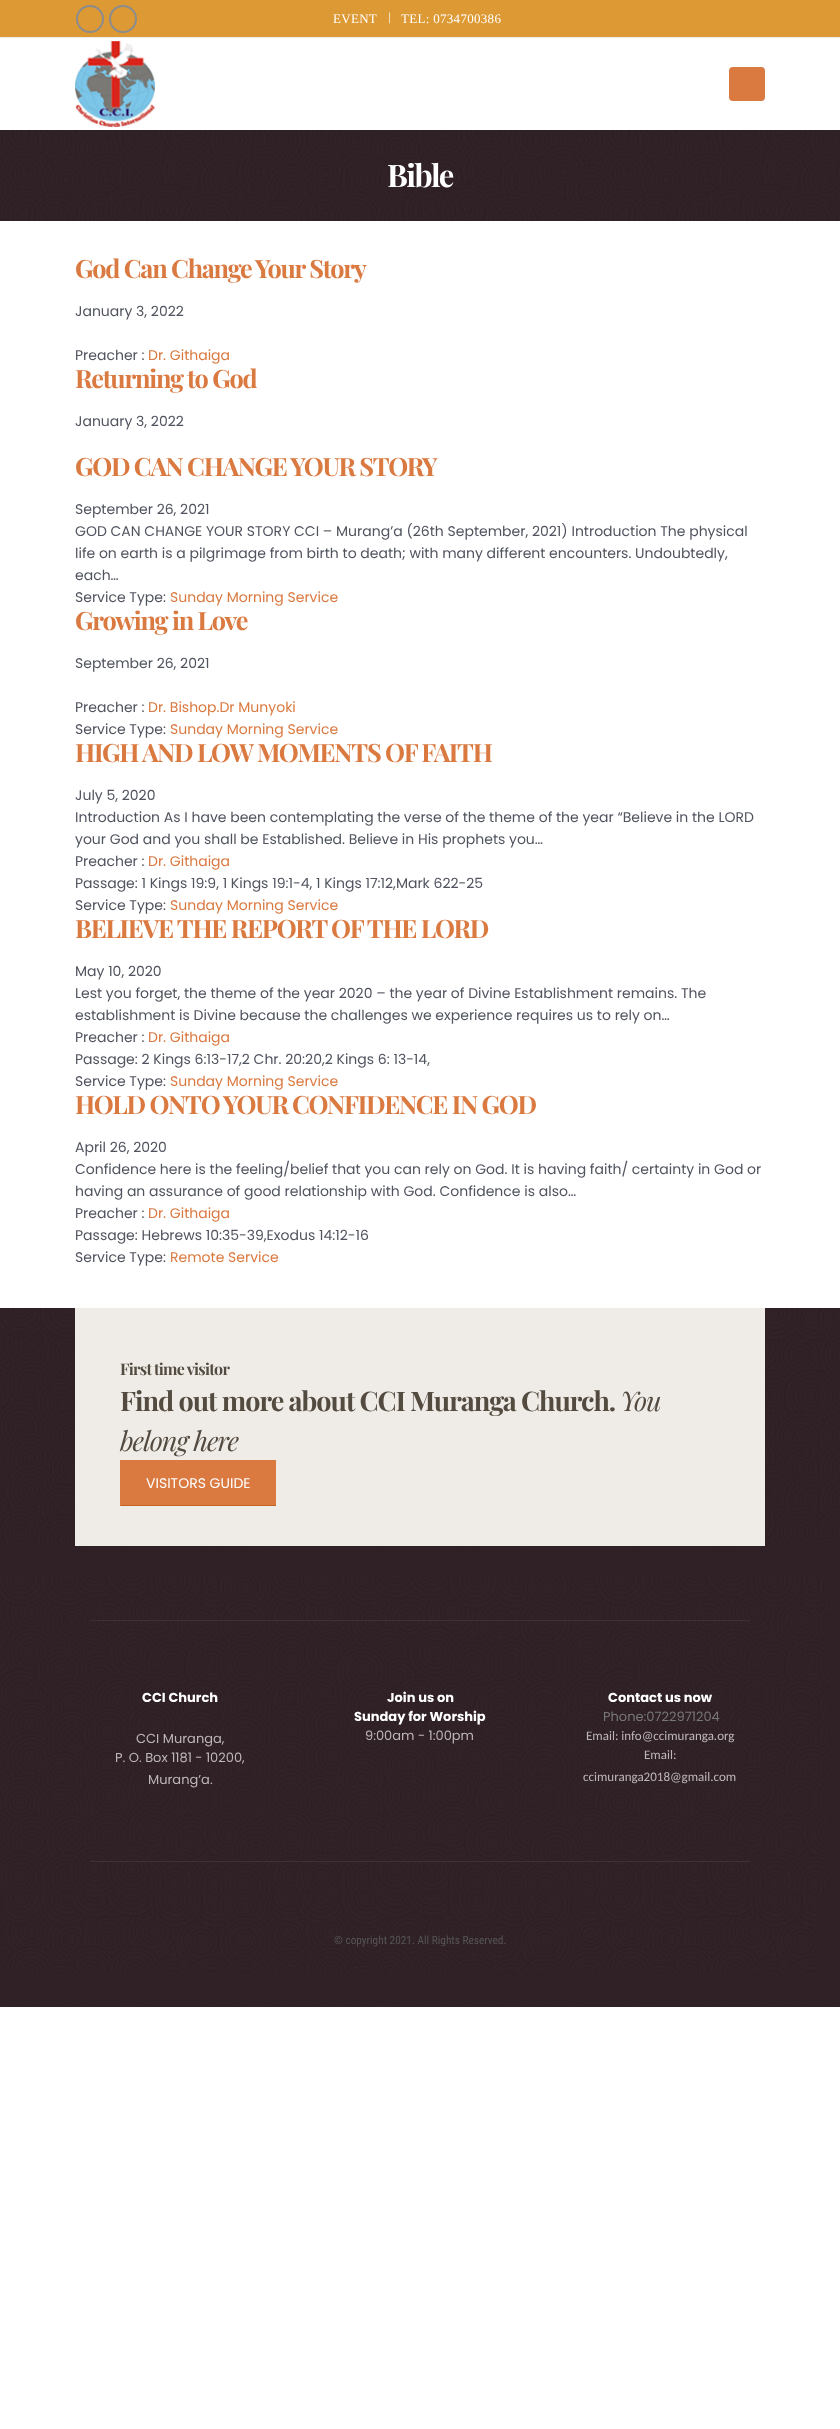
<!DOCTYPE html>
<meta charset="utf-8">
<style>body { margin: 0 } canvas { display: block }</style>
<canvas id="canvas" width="840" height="2429"></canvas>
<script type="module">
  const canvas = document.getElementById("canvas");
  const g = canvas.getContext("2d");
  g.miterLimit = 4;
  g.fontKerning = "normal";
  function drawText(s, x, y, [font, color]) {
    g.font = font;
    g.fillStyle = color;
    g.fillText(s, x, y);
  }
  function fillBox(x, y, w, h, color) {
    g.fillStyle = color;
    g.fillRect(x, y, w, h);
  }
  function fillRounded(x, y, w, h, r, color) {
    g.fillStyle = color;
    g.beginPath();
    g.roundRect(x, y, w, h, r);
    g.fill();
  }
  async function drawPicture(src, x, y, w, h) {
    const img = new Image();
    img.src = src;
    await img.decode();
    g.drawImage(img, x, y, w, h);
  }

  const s1 = ["13px Liberation Serif", "#FFFFFF"];
  const s2 = ["300 12px Poppins", "#F8EBD6"];
  const s3 = ["bold 31px Playfair Display", "#FFFFFF"];
  const s4 = ["bold 25.25px Playfair Display", "#DA7940"];
  const s5 = ["14px Poppins", "#50545F"];
  const s6 = ["14px Poppins", "#DA7940"];
  const s7 = ["bold 16px Playfair Display", "#544B40"];
  const s8 = ["bold 27px Playfair Display", "#544B40"];
  const s9 = ["italic 27px Playfair Display", "#544B40"];
  const s10 = ["14px Poppins", "#FFFFFF"];
  const s11 = ["bold 13px Poppins", "#FFFFFF"];
  const s12 = ["13px Poppins", "#BEB7B9"];
  const s13 = ["13px Poppins", "#777777"];
  const s14 = ["13px Carlito", "#BEB7B9"];
  const s15 = ["11.3px Roboto Condensed", "#555555"];

  fillBox(0, 0, 840, 2429, "#FFFFFF");
  fillBox(0, 0, 840, 37, "#DD9933");
  fillBox(0, 37, 840, 1, "#EDEDED");
  g.beginPath();
  g.arc(90, 19, 13, 0, Math.PI * 2);
  g.strokeStyle = "#8C8C8C";
  g.lineWidth = 2;
  g.stroke();
  g.beginPath();
  g.arc(123, 19, 13, 0, Math.PI * 2);
  g.stroke();
  g.letterSpacing = "0.3px";
  drawText("EVENT", 333, 23, s1);
  g.letterSpacing = "0px";
  drawText("|", 388, 22, s2);
  g.letterSpacing = "0.3px";
  drawText("TEL: 0734700386", 401, 23, s1);
  await drawPicture("pic1.png", 75, 41, 80, 86);
  fillRounded(729, 67, 36, 34, 4, "#DA7940");
  await drawPicture("pic2.png", 0, 130, 840, 91);
  g.letterSpacing = "-1.5px";
  drawText("Bible", 387, 187, s3);
  g.letterSpacing = "-1.25px";
  drawText("God Can Change Your Story", 75, 278, s4);
  g.letterSpacing = "0px";
  drawText("January 3, 2022", 75, 316, s5);
  drawText("Preacher :", 75, 360, s5);
  drawText("Dr. Githaiga", 148, 360, s6);
  g.letterSpacing = "-1.25px";
  drawText("Returning to God", 75, 388, s4);
  g.letterSpacing = "0px";
  drawText("January 3, 2022", 75, 426, s5);
  g.letterSpacing = "-1.25px";
  drawText("GOD CAN CHANGE YOUR STORY", 75, 476, s4);
  g.letterSpacing = "0px";
  drawText("September 26, 2021", 75, 514, s5);
  drawText("GOD CAN CHANGE YOUR STORY CCI – Murang’a (26th September, 2021) Introduction The physical", 75, 536, s5);
  drawText("life on earth is a pilgrimage from birth to death; with many different encounters. Undoubtedly,", 75, 558, s5);
  drawText("each…", 75, 580, s5);
  drawText("Service Type:", 75, 602, s5);
  drawText("Sunday Morning Service", 170, 602, s6);
  g.letterSpacing = "-1.25px";
  drawText("Growing in Love", 75, 630, s4);
  g.letterSpacing = "0px";
  drawText("September 26, 2021", 75, 668, s5);
  drawText("Preacher :", 75, 712, s5);
  drawText("Dr. Bishop.Dr Munyoki", 148, 712, s6);
  drawText("Service Type:", 75, 734, s5);
  drawText("Sunday Morning Service", 170, 734, s6);
  g.letterSpacing = "-1.25px";
  drawText("HIGH AND LOW MOMENTS OF FAITH", 75, 762, s4);
  g.letterSpacing = "0px";
  drawText("July 5, 2020", 75, 800, s5);
  drawText("Introduction As I have been contemplating the verse of the theme of the year “Believe in the LORD", 75, 822, s5);
  drawText("your God and you shall be Established. Believe in His prophets you…", 75, 844, s5);
  drawText("Preacher :", 75, 866, s5);
  drawText("Dr. Githaiga", 148, 866, s6);
  drawText("Passage: 1 Kings 19:9, 1 Kings 19:1-4, 1 Kings 17:12,Mark 622-25", 75, 888, s5);
  drawText("Service Type:", 75, 910, s5);
  drawText("Sunday Morning Service", 170, 910, s6);
  g.letterSpacing = "-1.25px";
  drawText("BELIEVE THE REPORT OF THE LORD", 75, 938, s4);
  g.letterSpacing = "0px";
  drawText("May 10, 2020", 75, 976, s5);
  drawText("Lest you forget, the theme of the year 2020 – the year of Divine Establishment remains. The", 75, 998, s5);
  drawText("establishment is Divine because the challenges we experience requires us to rely on…", 75, 1020, s5);
  drawText("Preacher :", 75, 1042, s5);
  drawText("Dr. Githaiga", 148, 1042, s6);
  drawText("Passage: 2 Kings 6:13-17,2 Chr. 20:20,2 Kings 6: 13-14,", 75, 1064, s5);
  drawText("Service Type:", 75, 1086, s5);
  drawText("Sunday Morning Service", 170, 1086, s6);
  g.letterSpacing = "-1.25px";
  drawText("HOLD ONTO YOUR CONFIDENCE IN GOD", 75, 1114, s4);
  g.letterSpacing = "0px";
  drawText("April 26, 2020", 75, 1152, s5);
  drawText("Confidence here is the feeling/belief that you can rely on God. It is having faith/ certainty in God or", 75, 1174, s5);
  drawText("having an assurance of good relationship with God. Confidence is also…", 75, 1196, s5);
  drawText("Preacher :", 75, 1218, s5);
  drawText("Dr. Githaiga", 148, 1218, s6);
  drawText("Passage: Hebrews 10:35-39,Exodus 14:12-16", 75, 1240, s5);
  drawText("Service Type:", 75, 1262, s5);
  drawText("Remote Service", 170, 1262, s6);
  await drawPicture("pic3.png", 0, 1308, 840, 238);
  fillBox(75, 1308, 690, 238, "#EFECE8");
  g.letterSpacing = "-0.75px";
  drawText("First time visitor", 120, 1375, s7);
  g.letterSpacing = "-1px";
  drawText("Find out more about CCI Muranga Church.", 120, 1411, s8);
  drawText("You", 620, 1411, s9);
  drawText("belong here", 120, 1451, s9);
  fillBox(121, 1460, 155, 45, "#DA7940");
  fillBox(120, 1505, 156, 1, "#C26026");
  fillBox(120, 1460, 1, 46, "#DA7940");
  g.letterSpacing = "0px";
  drawText("VISITORS GUIDE", 146, 1488, s10);
  await drawPicture("pic4.png", 0, 1546, 840, 461);
  await drawPicture("pic5.png", 0, 1576, 828, 316);
  fillBox(90, 1620, 660, 1, "#3F3035");
  drawText("CCI Church", 142, 1702, s11);
  drawText("CCI Muranga,", 136, 1743, s12);
  drawText("P. O. Box 1181 - 10200,", 115, 1762, s12);
  drawText("Murang’a.", 148, 1784, s12);
  drawText("Join us on", 387, 1702, s11);
  drawText("Sunday for Worship", 354, 1721, s11);
  drawText("9:00am - 1:00pm", 365, 1740, s12);
  drawText("Contact us now", 608, 1702, s11);
  drawText("Phone:0722971204", 603, 1721, s13);
  drawText("Email: info@ccimuranga.org", 586, 1740, s14);
  drawText("Email:", 644, 1759, s14);
  drawText("ccimuranga2018@gmail.com", 583, 1781, s14);
  fillBox(90, 1861, 660, 1, "#3F3035");
  await drawPicture("pic6.png", 3, 1895, 813, 77);
  drawText("© copyright 2021. All Rights Reserved.", 334, 1944, s15);
</script>
